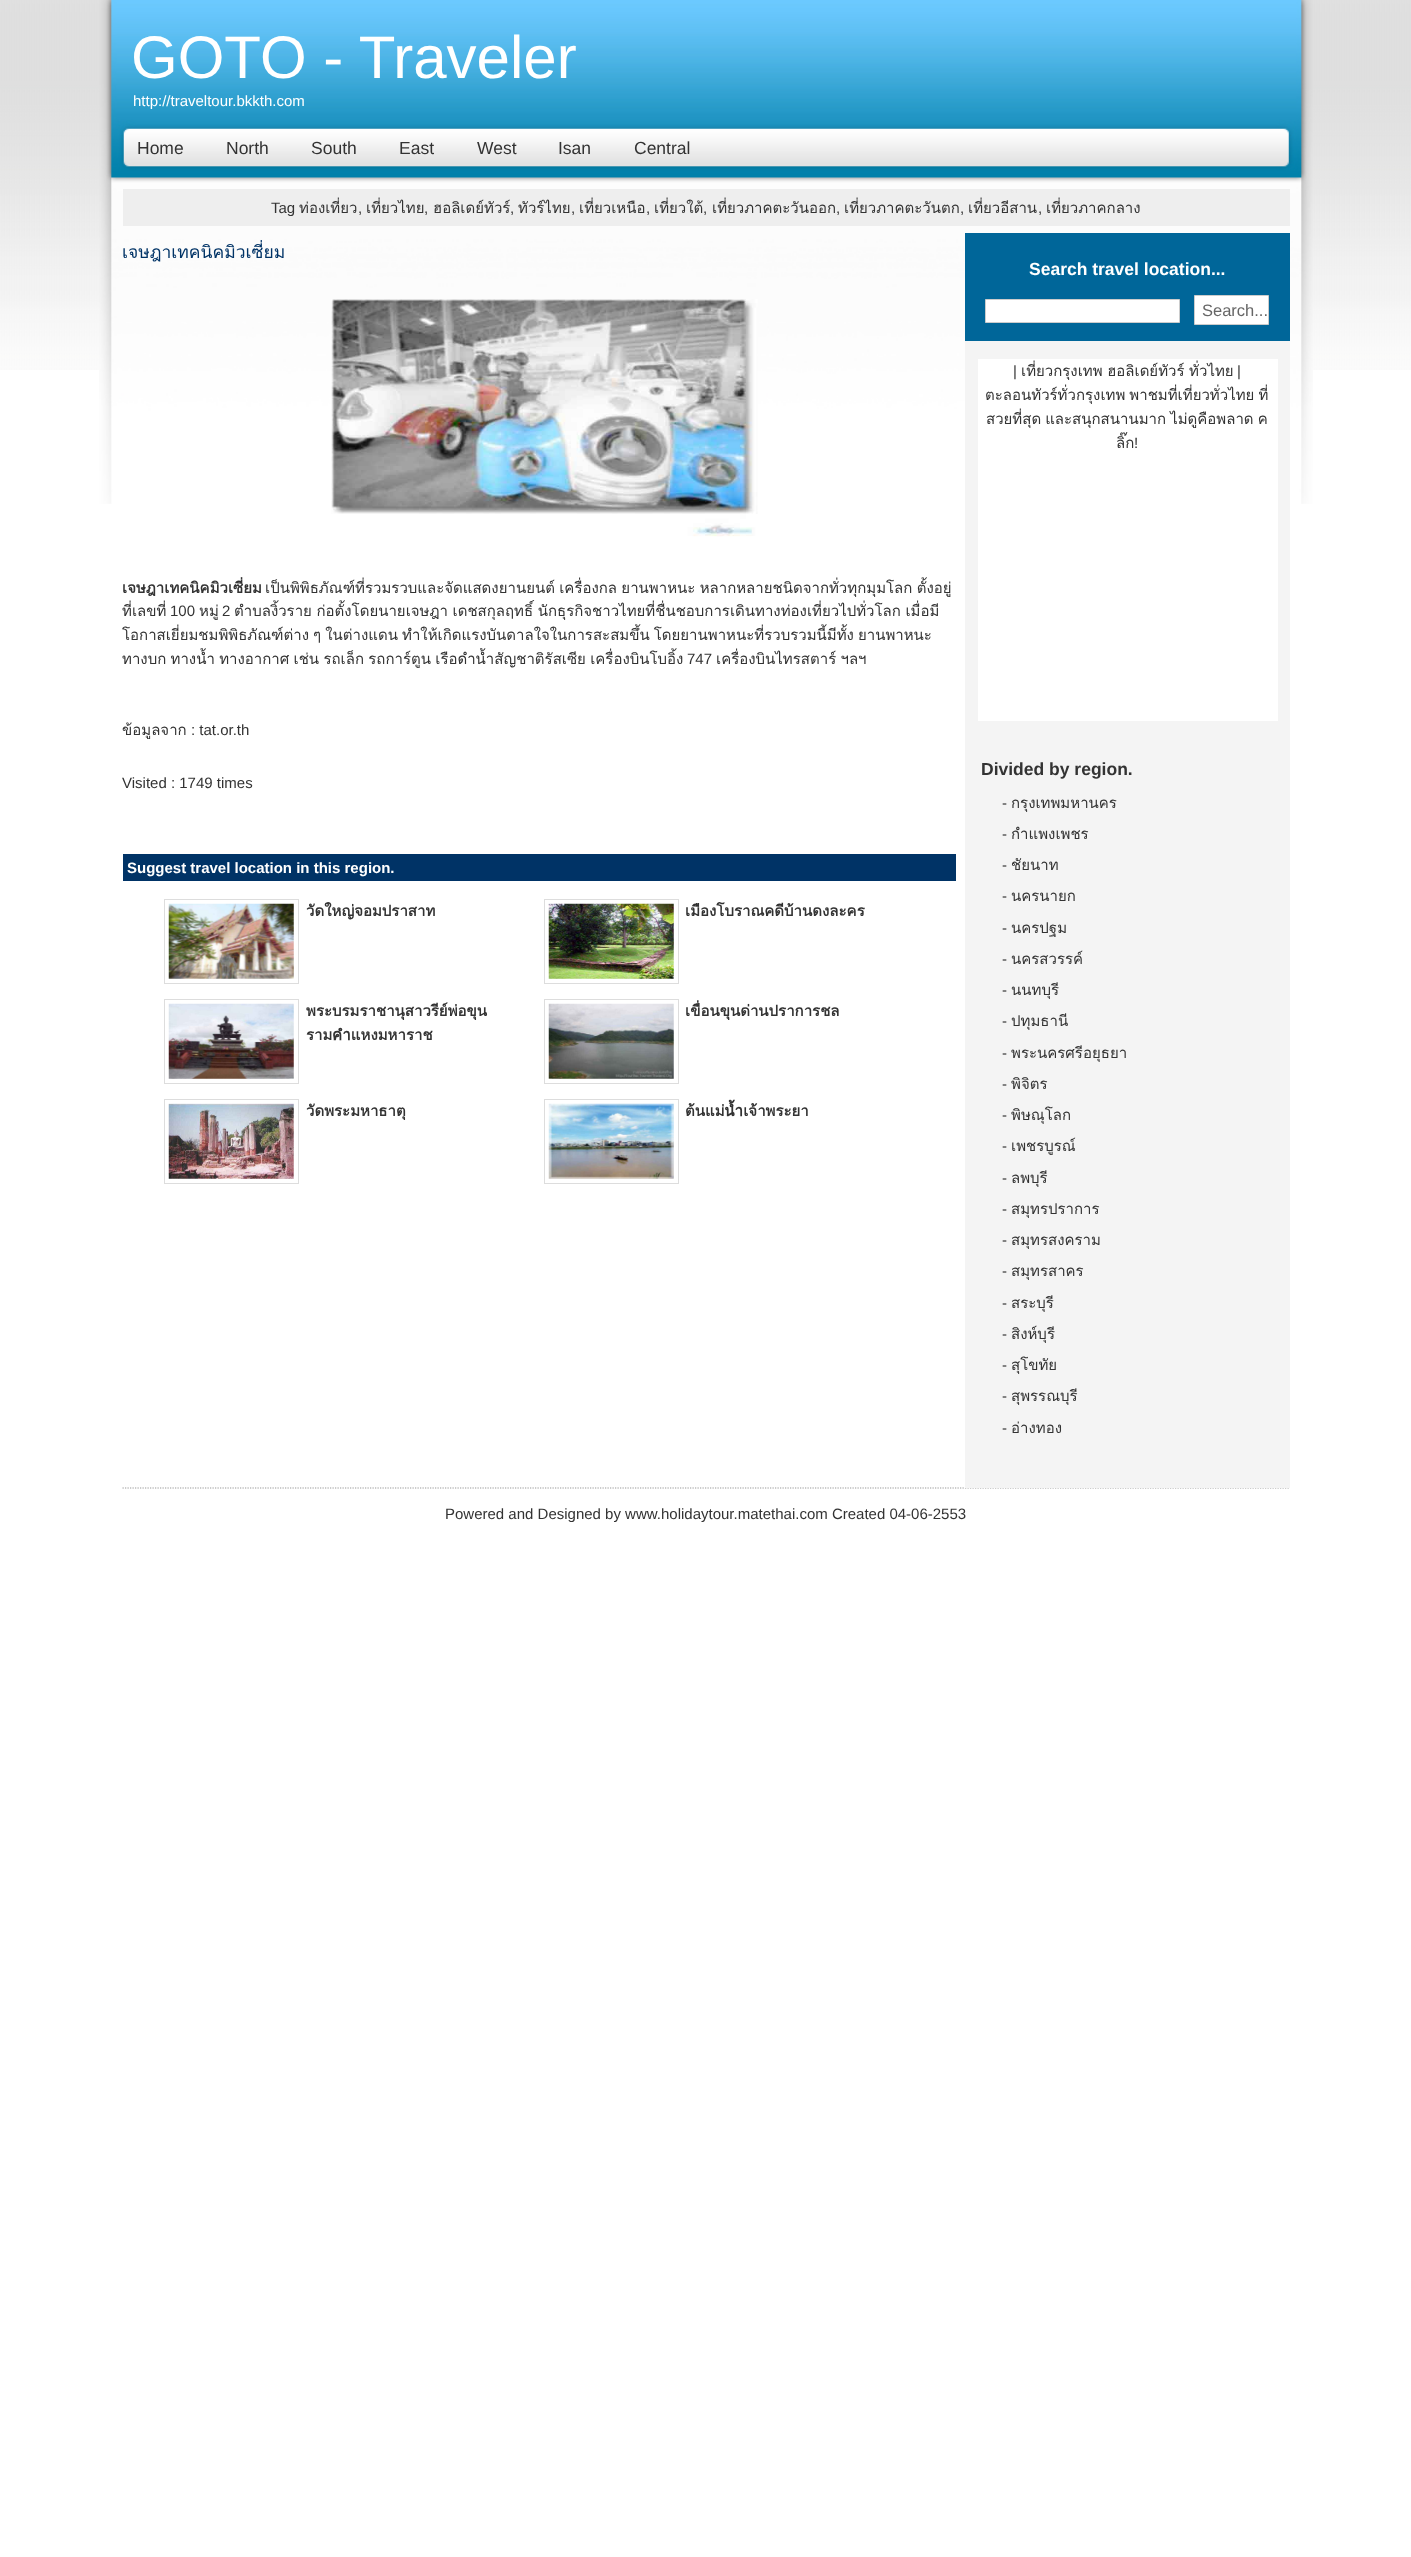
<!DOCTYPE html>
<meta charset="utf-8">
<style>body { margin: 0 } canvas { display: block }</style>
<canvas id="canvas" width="1411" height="2557"></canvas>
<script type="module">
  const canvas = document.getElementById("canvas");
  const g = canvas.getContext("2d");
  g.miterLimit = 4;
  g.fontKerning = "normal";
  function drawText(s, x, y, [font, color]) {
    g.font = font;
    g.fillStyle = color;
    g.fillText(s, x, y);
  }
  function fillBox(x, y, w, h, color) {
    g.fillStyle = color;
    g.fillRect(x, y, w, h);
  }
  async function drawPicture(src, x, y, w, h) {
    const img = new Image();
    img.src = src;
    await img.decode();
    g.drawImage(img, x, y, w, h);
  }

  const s1 = ["60px Liberation Sans", "#FFFFFF"];
  const s2 = ["15px Liberation Sans", "#FFFFFF"];
  const s3 = ["17.5px Liberation Sans", "#333333"];
  const s4 = ["15px Liberation Sans", "#333333"];
  const s5 = ["15px Loma", "#333333"];
  const s6 = ["17.5px Loma", "#003366"];
  const s7 = ["bold 15px Loma", "#333333"];
  const s8 = ["bold 15px Liberation Sans", "#FFFFFF"];
  const s9 = ["bold 17.5px Liberation Sans", "#FFFFFF"];
  const s10 = ["16.5px Liberation Sans", "#666666"];
  const s11 = ["bold 17.5px Liberation Sans", "#333333"];

  fillBox(0, 0, 1411, 2557, "#FFFFFF");
  await drawPicture("pic1.png", 0, 0, 1411, 370);
  await drawPicture("pic2.png", 99, 0, 1214, 504);
  drawText("GOTO - Traveler", 131, 78, s1);
  drawText("http://traveltour.bkkth.com", 133, 106, s2);
  drawText("Home", 137, 154, s3);
  drawText("North", 226, 154, s3);
  drawText("South", 311, 154, s3);
  drawText("East", 399, 154, s3);
  drawText("West", 477, 154, s3);
  drawText("Isan", 558, 154, s3);
  drawText("Central", 634, 154, s3);
  fillBox(123, 189, 1167, 37, "#EEEEEE");
  drawText("Tag", 271, 213, s4);
  drawText("ท่องเที่ยว", 299, 213, s5);
  drawText(",", 358, 213, s4);
  drawText("เที่ยวไทย", 366, 213, s5);
  drawText(",", 424, 213, s4);
  drawText("ฮอลิเดย์ทัวร์", 433, 213, s5);
  drawText(",", 510, 213, s4);
  drawText("ทัวร์ไทย", 518, 213, s5);
  drawText("เที่ยวเหนือ", 579, 213, s5);
  drawText("เที่ยวใต้", 654, 213, s5);
  drawText("เที่ยวภาคตะวันออก", 712, 213, s5);
  drawText("เที่ยวภาคตะวันตก", 844, 213, s5);
  drawText("เที่ยวอีสาน", 968, 213, s5);
  drawText("เที่ยวภาคกลาง", 1046, 213, s5);
  drawText(",", 571, 213, s4);
  drawText(",", 646, 213, s4);
  drawText(",", 703, 213, s4);
  drawText(",", 836, 213, s4);
  drawText(",", 960, 213, s4);
  drawText(",", 1038, 213, s4);
  g.beginPath();
  g.moveTo(122.5, 1488);
  g.lineTo(1290, 1488);
  g.strokeStyle = "#999999";
  g.lineWidth = 1.2;
  g.setLineDash([1.25, 1.25]);
  g.stroke();
  drawText("เจษฎาเทคนิคมิวเซี่ยม", 122, 258, s6);
  await drawPicture("pic3.png", 331, 299, 427, 238);
  drawText("เจษฎาเทคนิคมิวเซี่ยม", 122, 593, s7);
  g.wordSpacing = "-0.75px";
  drawText("เป็นพิพิธภัณฑ์ที่รวมรวบและจัดแสดงยานยนต์ เครื่องกล ยานพาหนะ หลากหลายชนิดจากทั่วทุกมุมโลก ตั้งอยู่", 265, 593, s5);
  g.wordSpacing = "0px";
  drawText("ที่เลขที่", 122, 616, s5);
  drawText("100", 170, 616, s4);
  drawText("หมู่", 199, 616, s5);
  drawText("2", 222, 616, s4);
  g.wordSpacing = "-0.5px";
  drawText("ตำบลงิ้วราย ก่อตั้งโดยนายเจษฎา เดชสกุลฤทธิ์ นักธุรกิจชาวไทยที่ชื่นชอบการเดินทางท่องเที่ยวไปทั่วโลก เมื่อมี", 234, 616, s5);
  g.wordSpacing = "-1px";
  drawText("โอกาสเยี่ยมชมพิพิธภัณฑ์ต่าง ๆ ในต่างแดน ทำให้เกิดแรงบันดาลใจในการสะสมขึ้น โดยยานพาหนะที่รวบรวมนี้มีทั้ง ยานพาหนะ", 122, 640, s5);
  g.wordSpacing = "-0.75px";
  drawText("ทางบก ทางน้ำ ทางอากาศ เช่น รถเล็ก รถการ์ตูน เรือดำน้ำสัญชาติรัสเซีย เครื่องบินโบอิ้ง", 122, 664, s5);
  g.wordSpacing = "0px";
  drawText("747", 687, 664, s4);
  g.wordSpacing = "-0.75px";
  drawText("เครื่องบินไทรสตาร์ ฯลฯ", 716, 664, s5);
  g.wordSpacing = "0px";
  drawText("ข้อมูลจาก", 122, 735, s5);
  drawText(": tat.or.th", 191, 735, s4);
  drawText("Visited : 1749 times", 122, 788, s4);
  fillBox(123, 854, 833, 27, "#003366");
  drawText("Suggest travel location in this region.", 127, 873, s8);
  g.strokeStyle = "#DDDDDD";
  g.lineWidth = 1;
  g.setLineDash([]);
  g.strokeRect(164.5, 899.5, 134, 84);
  await drawPicture("pic4.png", 168, 903, 126, 76);
  drawText("วัดใหญ่จอมปราสาท", 306, 916, s7);
  g.strokeRect(544.5, 899.5, 134, 84);
  await drawPicture("pic5.png", 548, 903, 126, 76);
  drawText("เมืองโบราณคดีบ้านดงละคร", 685, 916, s7);
  g.strokeRect(164.5, 999.5, 134, 84);
  await drawPicture("pic6.png", 168, 1003, 126, 76);
  drawText("พระบรมราชานุสาวรีย์พ่อขุน", 306, 1016, s7);
  drawText("รามคำแหงมหาราช", 306, 1040, s7);
  g.strokeRect(544.5, 999.5, 134, 84);
  await drawPicture("pic7.png", 548, 1003, 126, 76);
  drawText("เขื่อนขุนด่านปราการชล", 685, 1016, s7);
  g.strokeRect(164.5, 1099.5, 134, 84);
  await drawPicture("pic8.png", 168, 1103, 126, 76);
  drawText("วัดพระมหาธาตุ", 306, 1116, s7);
  g.strokeRect(544.5, 1099.5, 134, 84);
  await drawPicture("pic9.png", 548, 1103, 126, 76);
  drawText("ต้นแม่น้ำเจ้าพระยา", 685, 1116, s7);
  fillBox(965, 341, 325, 1147, "#F4F4F4");
  fillBox(965, 233, 325, 108, "#006699");
  drawText("Search travel location...", 1029, 275, s9);
  g.beginPath();
  g.rect(985.5, 299.5, 194, 23);
  g.fill();
  g.strokeStyle = "#CCCCCC";
  g.stroke();
  g.beginPath();
  g.rect(1194.5, 295.5, 74, 29);
  g.fill();
  g.stroke();
  drawText("Search...", 1202, 316, s10);
  fillBox(978, 359, 300, 362, "#FFFFFF");
  drawText("|", 1013, 376, s4);
  g.wordSpacing = "-0.5px";
  drawText("เที่ยวกรุงเทพ ฮอลิเดย์ทัวร์ ทั่วไทย", 1021, 376, s5);
  g.wordSpacing = "0px";
  drawText("|", 1237, 376, s4);
  g.wordSpacing = "-1px";
  drawText("ตะลอนทัวร์ทั่วกรุงเทพ พาชมที่เที่ยวทั่วไทย ที่", 985, 400, s5);
  drawText("สวยที่สุด และสนุกสนานมาก ไม่ดูคือพลาด ค", 986, 424, s5);
  g.wordSpacing = "0px";
  drawText("ลิ๊ก", 1116, 448, s5);
  drawText("!", 1134, 448, s4);
  drawText("Divided by region.", 981, 775, s11);
  drawText("-", 1002, 808, s4);
  drawText("กรุงเทพมหานคร", 1011, 808, s5);
  drawText("-", 1002, 839, s4);
  drawText("กำแพงเพชร", 1011, 839, s5);
  drawText("-", 1002, 870, s4);
  drawText("ชัยนาท", 1011, 870, s5);
  drawText("-", 1002, 901, s4);
  drawText("นครนายก", 1011, 901, s5);
  drawText("-", 1002, 933, s4);
  drawText("นครปฐม", 1011, 933, s5);
  drawText("-", 1002, 964, s4);
  drawText("นครสวรรค์", 1011, 964, s5);
  drawText("-", 1002, 995, s4);
  drawText("นนทบุรี", 1011, 995, s5);
  drawText("-", 1002, 1026, s4);
  drawText("ปทุมธานี", 1011, 1026, s5);
  drawText("-", 1002, 1058, s4);
  drawText("พระนครศรีอยุธยา", 1011, 1058, s5);
  drawText("-", 1002, 1089, s4);
  drawText("พิจิตร", 1011, 1089, s5);
  drawText("-", 1002, 1120, s4);
  drawText("พิษณุโลก", 1011, 1120, s5);
  drawText("-", 1002, 1151, s4);
  drawText("เพชรบูรณ์", 1011, 1151, s5);
  drawText("-", 1002, 1183, s4);
  drawText("ลพบุรี", 1011, 1183, s5);
  drawText("-", 1002, 1214, s4);
  drawText("สมุทรปราการ", 1011, 1214, s5);
  drawText("-", 1002, 1245, s4);
  drawText("สมุทรสงคราม", 1011, 1245, s5);
  drawText("-", 1002, 1276, s4);
  drawText("สมุทรสาคร", 1011, 1276, s5);
  drawText("-", 1002, 1308, s4);
  drawText("สระบุรี", 1011, 1308, s5);
  drawText("-", 1002, 1339, s4);
  drawText("สิงห์บุรี", 1011, 1339, s5);
  drawText("-", 1002, 1370, s4);
  drawText("สุโขทัย", 1011, 1370, s5);
  drawText("-", 1002, 1401, s4);
  drawText("สุพรรณบุรี", 1011, 1401, s5);
  drawText("-", 1002, 1433, s4);
  drawText("อ่างทอง", 1011, 1433, s5);
  drawText("Powered and Designed by www.holidaytour.matethai.com Created 04-06-2553", 445, 1519, s4);
</script>
